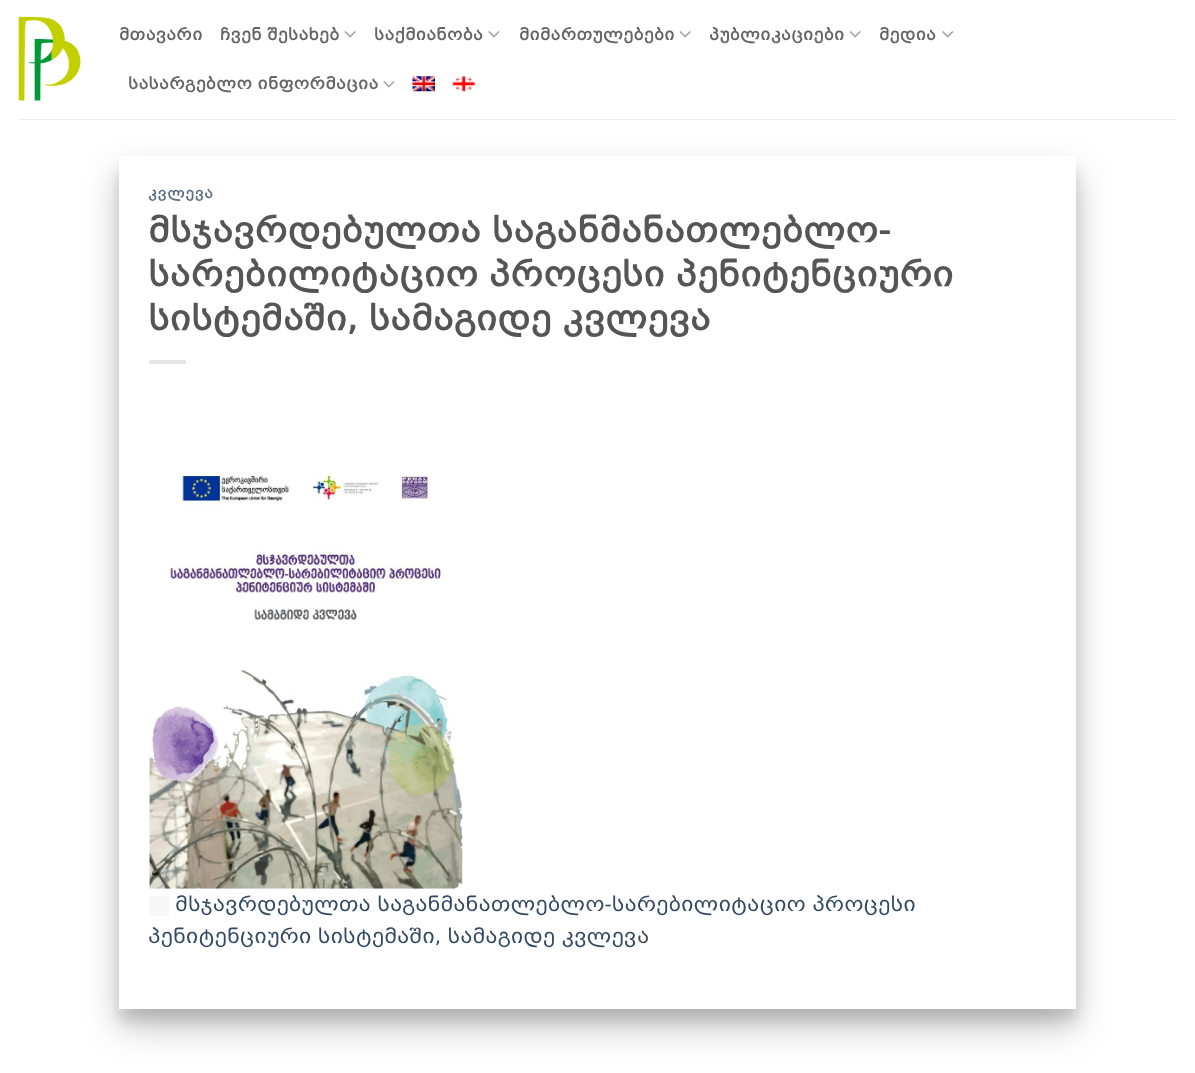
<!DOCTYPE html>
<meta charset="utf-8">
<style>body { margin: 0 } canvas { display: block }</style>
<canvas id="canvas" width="1195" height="1073"></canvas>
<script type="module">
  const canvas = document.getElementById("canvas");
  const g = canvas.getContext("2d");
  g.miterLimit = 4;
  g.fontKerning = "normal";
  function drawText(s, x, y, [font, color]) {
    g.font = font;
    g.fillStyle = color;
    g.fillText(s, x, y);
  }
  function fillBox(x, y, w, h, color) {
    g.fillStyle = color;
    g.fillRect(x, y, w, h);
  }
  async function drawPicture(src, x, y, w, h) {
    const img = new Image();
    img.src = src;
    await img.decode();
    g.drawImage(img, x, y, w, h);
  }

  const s1 = ["bold 16px 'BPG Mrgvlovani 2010'", "#656565"];
  const s2 = ["bold 14px 'BPG Mrgvlovani 2010'", "#5C6D81"];
  const s3 = ["bold 34px 'BPG Mrgvlovani 2010'", "#555555"];
  const s4 = ["20px 'BPG Mrgvlovani 2010'", "#334862"];
  const s5 = ["20px 'BPG Mrgvlovani 2010'", "#4A4A4A"];

  fillBox(0, 0, 1195, 1073, "#FFFFFF");
  await drawPicture("pic1.png", 18, 16, 63, 85);
  g.letterSpacing = "0.3px";
  drawText("მთავარი", 119, 40, s1);
  drawText("ჩვენ შესახებ", 220, 40, s1);
  await drawPicture("pic2.png", 344, 31, 12, 7);
  drawText("საქმიანობა", 374, 40, s1);
  await drawPicture("pic3.png", 488, 31, 12, 7);
  drawText("მიმართულებები", 519, 40, s1);
  await drawPicture("pic2.png", 679, 31, 12, 7);
  drawText("პუბლიკაციები", 709, 40, s1);
  await drawPicture("pic2.png", 849, 31, 12, 7);
  drawText("მედია", 879, 40, s1);
  await drawPicture("pic4.png", 942, 31, 12, 7);
  drawText("სასარგებლო ინფორმაცია", 128, 89, s1);
  await drawPicture("pic3.png", 383, 81, 12, 7);
  await drawPicture("pic5.png", 412, 76, 23, 16);
  await drawPicture("pic6.png", 452, 76, 23, 16);
  fillBox(19, 119, 1157, 1, "#EDEDED");
  g.fillStyle = "rgba(0, 0, 0, 0.1)";
  g.filter = "blur(6px)";
  g.beginPath();
  g.rect(119, 169, 957, 852);
  g.fill();
  g.filter = "none";
  g.fillStyle = "rgba(0, 0, 0, 0.25)";
  g.filter = "blur(17.5px)";
  g.beginPath();
  g.rect(119, 174, 957, 852);
  g.fill();
  g.filter = "none";
  fillBox(119, 156, 957, 853, "#FFFFFF");
  g.letterSpacing = "0.75px";
  drawText("კვლევა", 148, 198, s2);
  g.letterSpacing = "0px";
  drawText("მსჯავრდებულთა საგანმანათლებლო-", 148, 242, s3);
  drawText("სარებილიტაციო პროცესი პენიტენციური", 148, 286, s3);
  drawText("სისტემაში, სამაგიდე კვლევა", 148, 330, s3);
  fillBox(149, 360, 37, 4, "#E6E6E6");
  await drawPicture("pic7.png", 149, 472, 314, 417);
  fillBox(149, 896, 20, 20, "#F7F7F7");
  drawText("მსჯავრდებულთა საგანმანათლებლო-სარებილიტაციო პროცესი", 175, 911, s4);
  drawText("პენიტენციური სისტემაში, სამაგიდე კვლევ", 148, 943, s4);
  drawText("ა", 637, 943, s5);
</script>
